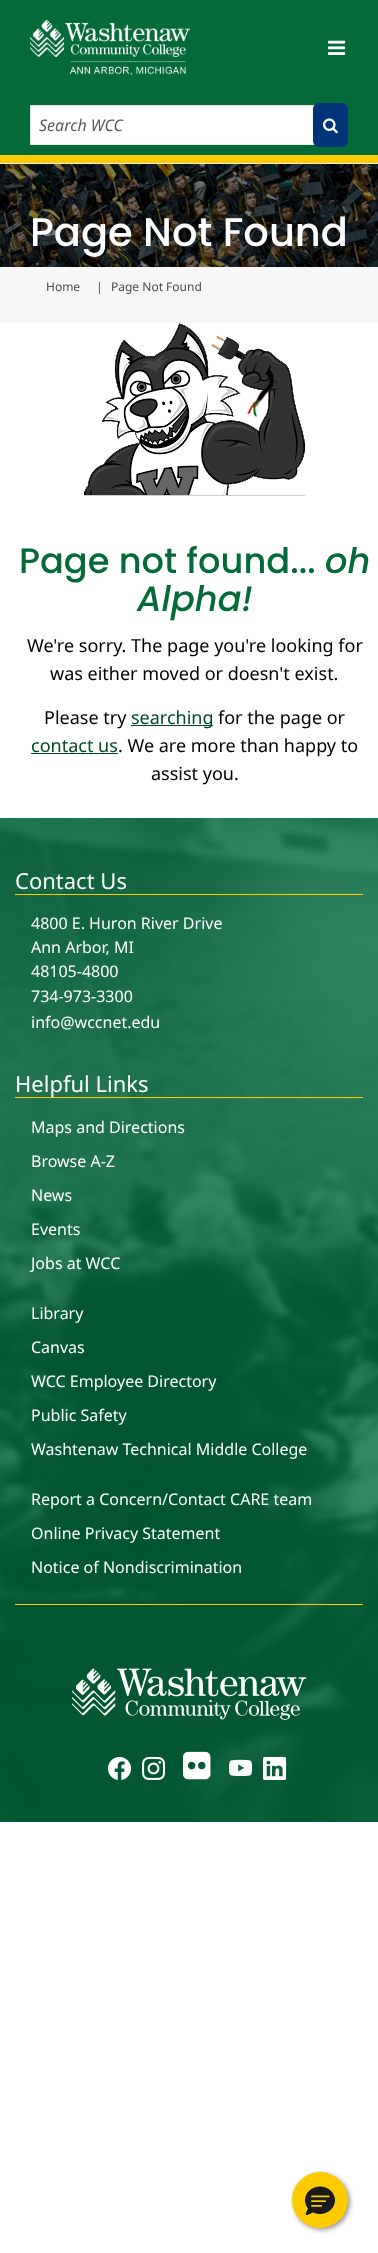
<!DOCTYPE html>
<meta charset="utf-8">
<style>body { margin: 0 } canvas { display: block }</style>
<canvas id="canvas" width="378" height="2253"></canvas>
<script type="module">
  const canvas = document.getElementById("canvas");
  const g = canvas.getContext("2d");
  g.miterLimit = 4;
  g.fontKerning = "normal";
  function drawText(s, x, y, [font, color]) {
    g.font = font;
    g.fillStyle = color;
    g.fillText(s, x, y);
  }
  function fillBox(x, y, w, h, color) {
    g.fillStyle = color;
    g.fillRect(x, y, w, h);
  }
  async function drawPicture(src, x, y, w, h) {
    const img = new Image();
    img.src = src;
    await img.decode();
    g.drawImage(img, x, y, w, h);
  }

  const s1 = ["italic 16px Noto Sans", "#595959"];
  const s2 = ["500 40px Poppins", "#FFFFFF"];
  const s3 = ["12px Noto Sans", "#4A4A4A"];
  const s4 = ["500 35.25px Poppins", "#046A38"];
  const s5 = ["italic 500 35.25px Poppins", "#046A38"];
  const s6 = ["18px Noto Sans", "#000000"];
  const s7 = ["18px Noto Sans", "#004B25"];
  const s8 = ["22px Noto Sans", "#FFFFFF"];
  const s9 = ["16px Noto Sans", "#FFFFFF"];

  fillBox(0, 0, 378, 2253, "#FFFFFF");
  fillBox(0, 0, 378, 155, "#046A38");
  await drawPicture("pic1.png", 30, 20, 160, 55);
  await drawPicture("pic2.png", 328, 40, 18, 15);
  fillBox(31, 106, 283, 38, "#FFFFFF");
  g.strokeStyle = "#EAEAEA";
  g.strokeRect(30.5, 105.5, 293, 39);
  drawText("Search WCC", 39, 131, s1);
  g.fillStyle = "#003478";
  g.beginPath();
  g.roundRect(314, 104, 33, 42, 5);
  g.fill();
  g.strokeStyle = "#003478";
  g.lineWidth = 2;
  g.stroke();
  await drawPicture("pic3.png", 323, 118, 15, 16);
  fillBox(0, 155, 378, 8, "#FECB00");
  fillBox(0, 163, 378, 1, "#EEEEEE");
  await drawPicture("pic4.png", 0, 164, 378, 103);
  drawText("Page Not Found", 30, 246, s2);
  fillBox(0, 267, 378, 56, "#F7F7F7");
  drawText("Home", 46, 291, s3);
  drawText("|", 96, 291, s3);
  drawText("Page Not Found", 111, 291, s3);
  fillBox(84, 495, 221, 1, "#CCCCCC");
  await drawPicture("pic5.png", 84, 323, 221, 172);
  drawText("Page not found...", 19, 573, s4);
  drawText("oh", 325, 573, s5);
  drawText("Alpha!", 137, 611, s5);
  drawText("We're sorry. The page you're looking for", 27, 652, s6);
  drawText("was either moved or doesn't exist.", 50, 680, s6);
  drawText("Please try", 44, 724, s6);
  fillBox(131, 725, 82, 1, "#004B25");
  drawText("searching", 131, 724, s7);
  drawText("for the page or", 218, 724, s6);
  drawText("contact us", 31, 752, s7);
  fillBox(31, 753, 87, 1, "#004B25");
  drawText(". We are more than happy to", 118, 752, s6);
  drawText("assist you.", 151, 780, s6);
  await drawPicture("pic6.png", 0, 818, 378, 1004);
  fillBox(15, 894, 348, 1, "#FECB00");
  drawText("Contact Us", 15, 889, s8);
  drawText("4800 E. Huron River Drive", 31, 929, s9);
  drawText("Ann Arbor, MI", 31, 953, s9);
  drawText("48105-4800", 31, 977, s9);
  drawText("734-973-3300", 31, 1002, s9);
  drawText("info@wccnet.edu", 31, 1028, s9);
  fillBox(15, 1097, 348, 1, "#FECB00");
  drawText("Helpful Links", 15, 1092, s8);
  drawText("Maps and Directions", 31, 1133, s9);
  drawText("Browse A-Z", 31, 1167, s9);
  drawText("News", 31, 1201, s9);
  drawText("Events", 31, 1235, s9);
  drawText("Jobs at WCC", 31, 1269, s9);
  drawText("Library", 31, 1319, s9);
  drawText("Canvas", 31, 1353, s9);
  drawText("WCC Employee Directory", 31, 1387, s9);
  drawText("Public Safety", 31, 1421, s9);
  drawText("Washtenaw Technical Middle College", 31, 1455, s9);
  drawText("Report a Concern/Contact CARE team", 31, 1505, s9);
  drawText("Online Privacy Statement", 31, 1539, s9);
  drawText("Notice of Nondiscrimination", 31, 1573, s9);
  fillBox(15, 1604, 348, 1, "#FECB00");
  await drawPicture("pic7.png", 72, 1668, 235, 52);
  await drawPicture("pic8.png", 108, 1756, 24, 24);
  await drawPicture("pic9.png", 142, 1756, 24, 24);
  await drawPicture("pic10.png", 183, 1751, 28, 29);
  await drawPicture("pic11.png", 229, 1759, 24, 17);
  await drawPicture("pic12.png", 263, 1756, 24, 24);
  g.fillStyle = "rgba(45, 45, 45, 0.5)";
  g.filter = "blur(2.5px)";
  g.beginPath();
  g.roundRect(294, 2174, 56, 56, 28);
  g.fill();
  g.filter = "none";
  g.fillStyle = "#FECB00";
  g.beginPath();
  g.arc(320, 2200, 28, 0, Math.PI * 2);
  g.fill();
  await drawPicture("pic13.png", 305, 2186, 30, 29);
</script>
